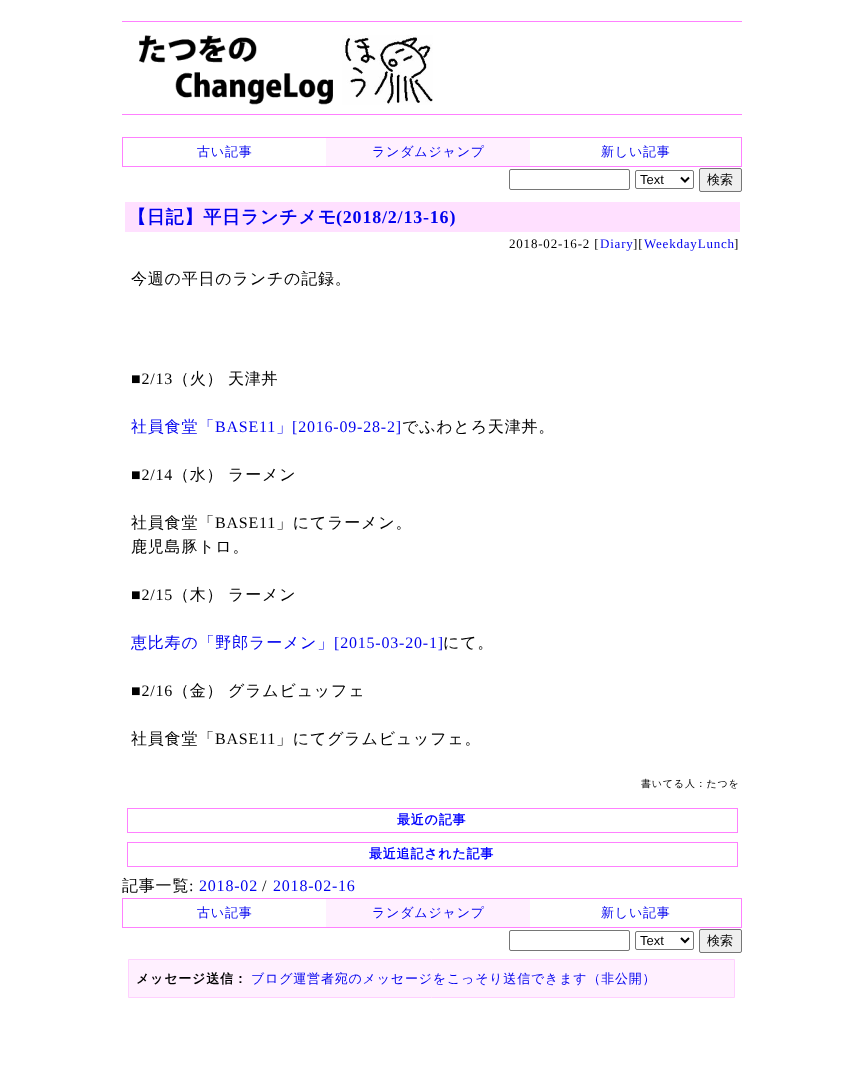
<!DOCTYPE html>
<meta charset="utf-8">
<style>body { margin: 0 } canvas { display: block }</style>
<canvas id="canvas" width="863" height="1087"></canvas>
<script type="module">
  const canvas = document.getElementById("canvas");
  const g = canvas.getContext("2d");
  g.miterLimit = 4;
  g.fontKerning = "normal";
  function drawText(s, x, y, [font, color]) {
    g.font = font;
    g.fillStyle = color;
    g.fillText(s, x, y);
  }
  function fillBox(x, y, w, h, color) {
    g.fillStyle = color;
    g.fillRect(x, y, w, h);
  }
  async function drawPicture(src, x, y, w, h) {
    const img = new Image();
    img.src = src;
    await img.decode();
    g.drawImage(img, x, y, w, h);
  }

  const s1 = ["500 13px WenQuanYi Zen Hei", "#0000EE"];
  const s2 = ["13px Liberation Sans", "#000000"];
  const s3 = ["500 13px WenQuanYi Zen Hei", "#000000"];
  const s4 = ["bold 18px WenQuanYi Zen Hei", "#0000EE"];
  const s5 = ["bold 18px Liberation Serif", "#0000EE"];
  const s6 = ["13px Liberation Serif", "#000000"];
  const s7 = ["13px Liberation Serif", "#0000EE"];
  const s8 = ["500 16px WenQuanYi Zen Hei", "#000000"];
  const s9 = ["16px Liberation Serif", "#000000"];
  const s10 = ["500 16px WenQuanYi Zen Hei", "#0000EE"];
  const s11 = ["16px Liberation Serif", "#0000EE"];
  const s12 = ["500 10px WenQuanYi Zen Hei", "#000000"];
  const s13 = ["bold 13px WenQuanYi Zen Hei", "#0000FF"];
  const s14 = ["bold 13px WenQuanYi Zen Hei", "#000000"];

  fillBox(0, 0, 863, 1087, "#FFFFFF");
  fillBox(122, 21, 620, 1, "#FF80FF");
  fillBox(122, 114, 620, 1, "#FF80FF");
  await drawPicture("pic1.png", 139, 35, 294, 70);
  g.strokeStyle = "#FF80FF";
  g.strokeRect(122.5, 137.5, 619, 29);
  g.letterSpacing = "0.8px";
  drawText("古い記事", 197, 156, s1);
  fillBox(326, 138, 204, 28, "#FFF0FF");
  drawText("ランダムジャンプ", 372, 156, s1);
  drawText("新しい記事", 601, 156, s1);
  g.beginPath();
  g.roundRect(509.5, 169.5, 120, 20, 1.5);
  g.strokeStyle = "#767676";
  g.stroke();
  g.beginPath();
  g.roundRect(635.5, 170.5, 58, 18, 1.5);
  g.stroke();
  g.beginPath();
  g.moveTo(681, 177.5);
  g.lineTo(685, 181.5);
  g.lineTo(689, 177.5);
  g.strokeStyle = "#000000";
  g.lineWidth = 2;
  g.stroke();
  g.letterSpacing = "0px";
  drawText("Text", 640, 184, s2);
  g.fillStyle = "#EFEFEF";
  g.beginPath();
  g.roundRect(699.5, 168.5, 42, 23, 1.5);
  g.fill();
  g.strokeStyle = "#767676";
  g.lineWidth = 1;
  g.stroke();
  drawText("検索", 707, 184, s3);
  fillBox(125, 202, 615, 30, "#FFE0FF");
  g.letterSpacing = "0.8px";
  drawText("【日記】平日ランチメモ", 128, 223, s4);
  drawText("(2018/2/13-16)", 336, 223, s5);
  drawText("2018-02-16-2 [", 509, 248, s6);
  drawText("Diary", 600, 248, s7);
  drawText("][", 633, 248, s6);
  drawText("WeekdayLunch", 644, 248, s7);
  drawText("]", 734, 248, s6);
  drawText("今週の平日のランチの記録。", 131, 284, s8);
  drawText("■2/13", 131, 384, s9);
  g.wordSpacing = "-1px";
  drawText("（火） 天津丼", 173, 384, s8);
  g.wordSpacing = "0px";
  drawText("社員食堂「", 131, 432, s10);
  drawText("BASE11", 215, 432, s11);
  drawText("」", 276, 432, s10);
  drawText("[2016-09-28-2]", 292, 432, s11);
  drawText("でふわとろ天津丼。", 402, 432, s8);
  drawText("■2/14", 131, 480, s9);
  g.wordSpacing = "-1px";
  drawText("（水） ラーメン", 173, 480, s8);
  g.wordSpacing = "0px";
  drawText("社員食堂「", 131, 528, s8);
  drawText("BASE11", 215, 528, s9);
  drawText("」にてラーメン。", 276, 528, s8);
  drawText("鹿児島豚トロ。", 131, 552, s8);
  drawText("■2/15", 131, 600, s9);
  g.wordSpacing = "-1px";
  drawText("（木） ラーメン", 173, 600, s8);
  g.wordSpacing = "0px";
  drawText("恵比寿の「野郎ラーメン」", 131, 648, s10);
  drawText("[2015-03-20-1]", 334, 648, s11);
  drawText("にて。", 443, 648, s8);
  drawText("■2/16", 131, 696, s9);
  g.wordSpacing = "-1px";
  drawText("（金） グラムビュッフェ", 173, 696, s8);
  g.wordSpacing = "0px";
  drawText("社員食堂「", 131, 744, s8);
  drawText("BASE11", 215, 744, s9);
  drawText("」にてグラムビュッフェ。", 276, 744, s8);
  drawText("書いてる人：たつを", 641, 787, s12);
  g.strokeStyle = "#FF80FF";
  g.strokeRect(127.5, 808.5, 610, 24);
  drawText("最近の記事", 397, 824, s13);
  g.strokeRect(127.5, 842.5, 610, 24);
  drawText("最近追記された記事", 369, 858, s13);
  drawText("記事一覧", 122, 891, s8);
  drawText(":", 189, 891, s9);
  drawText("2018-02", 199, 891, s11);
  drawText("/", 262, 891, s9);
  drawText("2018-02-16", 273, 891, s11);
  g.strokeRect(122.5, 898.5, 619, 29);
  drawText("古い記事", 197, 917, s1);
  fillBox(326, 899, 204, 28, "#FFF0FF");
  drawText("ランダムジャンプ", 372, 917, s1);
  drawText("新しい記事", 601, 917, s1);
  g.beginPath();
  g.roundRect(509.5, 930.5, 120, 20, 1.5);
  g.strokeStyle = "#767676";
  g.stroke();
  g.beginPath();
  g.roundRect(635.5, 931.5, 58, 18, 1.5);
  g.stroke();
  g.beginPath();
  g.moveTo(681, 938);
  g.lineTo(685, 942);
  g.lineTo(689, 938);
  g.strokeStyle = "#000000";
  g.lineWidth = 2;
  g.stroke();
  g.letterSpacing = "0px";
  drawText("Text", 640, 945, s2);
  g.fillStyle = "#EFEFEF";
  g.beginPath();
  g.roundRect(699.5, 929.5, 42, 23, 1.5);
  g.fill();
  g.strokeStyle = "#767676";
  g.lineWidth = 1;
  g.stroke();
  drawText("検索", 707, 945, s3);
  g.fillStyle = "#FFF0FF";
  g.beginPath();
  g.rect(128.5, 959.5, 606, 38);
  g.fill();
  g.strokeStyle = "#FFD0FF";
  g.stroke();
  g.letterSpacing = "0.8px";
  drawText("メッセージ送信：", 136, 983, s14);
  drawText("ブログ運営者宛のメッセージをこっそり送信できます（非公開）", 251, 983, s1);
</script>
